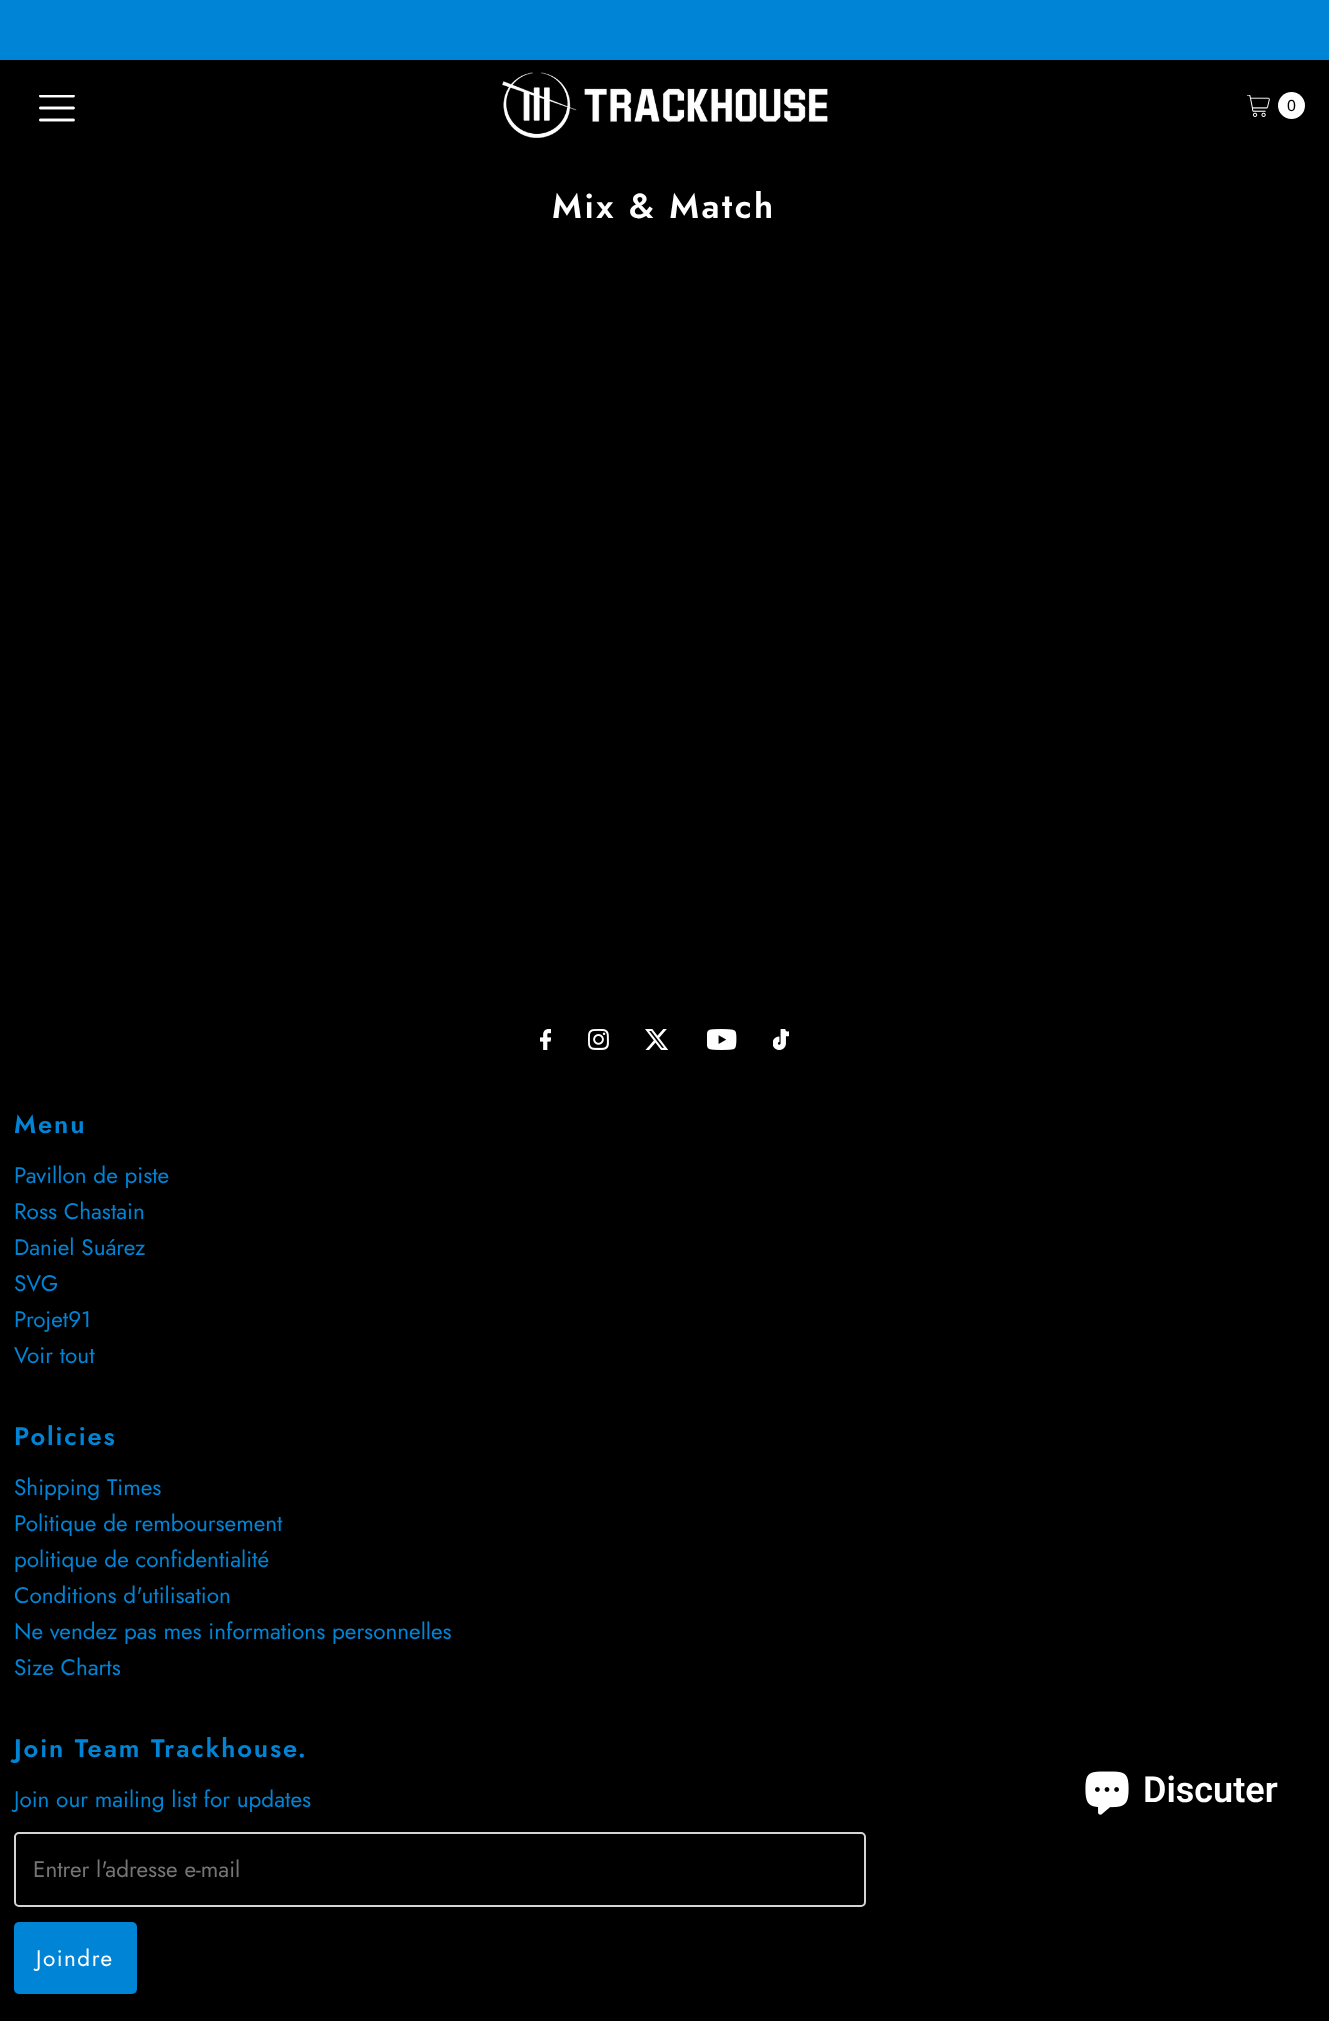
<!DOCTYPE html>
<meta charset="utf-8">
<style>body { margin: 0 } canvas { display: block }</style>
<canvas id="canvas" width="1329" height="2021"></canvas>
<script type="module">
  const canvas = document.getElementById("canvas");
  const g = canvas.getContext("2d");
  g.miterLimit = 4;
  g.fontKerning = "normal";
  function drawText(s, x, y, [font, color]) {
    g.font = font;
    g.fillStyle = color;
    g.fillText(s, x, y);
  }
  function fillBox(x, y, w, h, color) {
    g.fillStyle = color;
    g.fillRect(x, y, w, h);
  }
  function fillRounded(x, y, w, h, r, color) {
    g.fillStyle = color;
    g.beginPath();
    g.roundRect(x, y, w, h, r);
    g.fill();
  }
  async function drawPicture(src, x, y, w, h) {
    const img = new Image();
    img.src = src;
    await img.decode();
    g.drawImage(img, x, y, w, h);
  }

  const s1 = ["16px Liberation Sans", "#000000"];
  const s2 = ["600 34.5px Jost", "#FFFFFF"];
  const s3 = ["600 25.5px Jost", "#0084D6"];
  const s4 = ["22.5px Jost", "#0084D6"];
  const s5 = ["22.5px Jost", "#757575"];
  const s6 = ["22.5px Jost", "#FFFFFF"];
  const s7 = ["600 36px Roboto", "#FFFFFF"];

  fillBox(0, 0, 1329, 2021, "#000000");
  fillBox(0, 0, 1329, 60, "#0084D6");
  await drawPicture("pic1.png", 39, 95, 36, 27);
  await drawPicture("pic2.png", 502, 72, 326, 66);
  await drawPicture("pic3.png", 1247, 95, 23, 22);
  g.fillStyle = "#FFFFFF";
  g.beginPath();
  g.arc(1291.5, 105.5, 13.5, 0, Math.PI * 2);
  g.fill();
  drawText("0", 1287, 111, s1);
  g.letterSpacing = "2.5px";
  drawText("Mix & Match", 552, 218, s2);
  await drawPicture("pic4.png", 540, 1029, 11, 21);
  await drawPicture("pic5.png", 588, 1029, 21, 21);
  await drawPicture("pic6.png", 645, 1029, 24, 21);
  await drawPicture("pic7.png", 707, 1029, 30, 21);
  await drawPicture("pic8.png", 773, 1029, 16, 21);
  g.letterSpacing = "1.9px";
  drawText("Menu", 14, 1133, s3);
  g.letterSpacing = "0px";
  drawText("Pavillon de piste", 14, 1183, s4);
  drawText("Ross Chastain", 14, 1219, s4);
  drawText("Daniel Suárez", 14, 1255, s4);
  drawText("SVG", 14, 1291, s4);
  drawText("Projet91", 14, 1327, s4);
  drawText("Voir tout", 14, 1363, s4);
  g.letterSpacing = "1.9px";
  drawText("Policies", 14, 1445, s3);
  g.letterSpacing = "0px";
  drawText("Shipping Times", 14, 1495, s4);
  drawText("Politique de remboursement", 14, 1531, s4);
  drawText("politique de confidentialité", 14, 1567, s4);
  drawText("Conditions d'utilisation", 14, 1603, s4);
  drawText("Ne vendez pas mes informations personnelles", 14, 1639, s4);
  drawText("Size Charts", 14, 1675, s4);
  g.letterSpacing = "1.9px";
  drawText("Join Team Trackhouse.", 14, 1757, s3);
  g.letterSpacing = "0px";
  drawText("Join our mailing list for updates", 14, 1807, s4);
  g.beginPath();
  g.roundRect(15, 1833, 850, 73, 4);
  g.strokeStyle = "#D5D5D5";
  g.lineWidth = 2;
  g.stroke();
  drawText("Entrer l'adresse e-mail", 33, 1877, s5);
  fillRounded(14, 1922, 123, 72, 5, "#0084D6");
  g.letterSpacing = "1.5px";
  drawText("Joindre", 36, 1966, s6);
  await drawPicture("pic9.png", 1085, 1771, 44, 44);
  g.letterSpacing = "0px";
  drawText("Discuter", 1143, 1802, s7);
</script>
